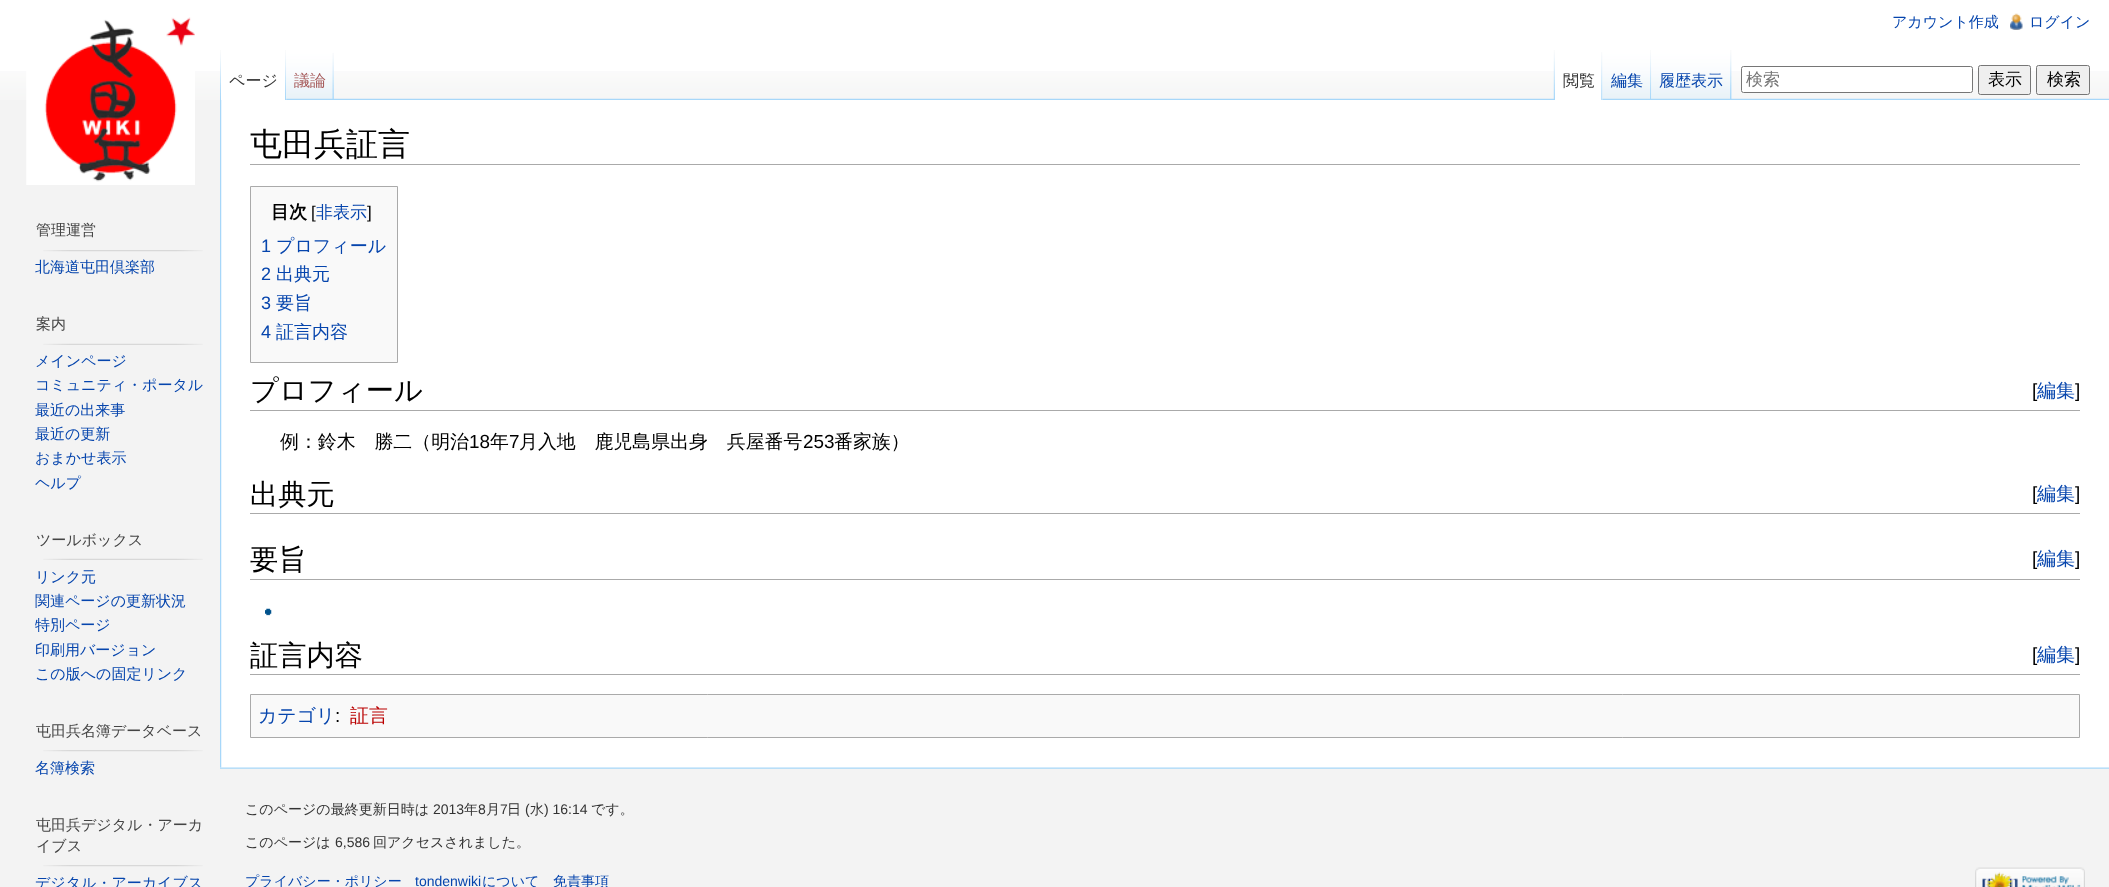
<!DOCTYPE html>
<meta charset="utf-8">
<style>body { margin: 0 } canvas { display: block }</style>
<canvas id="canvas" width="2109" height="887"></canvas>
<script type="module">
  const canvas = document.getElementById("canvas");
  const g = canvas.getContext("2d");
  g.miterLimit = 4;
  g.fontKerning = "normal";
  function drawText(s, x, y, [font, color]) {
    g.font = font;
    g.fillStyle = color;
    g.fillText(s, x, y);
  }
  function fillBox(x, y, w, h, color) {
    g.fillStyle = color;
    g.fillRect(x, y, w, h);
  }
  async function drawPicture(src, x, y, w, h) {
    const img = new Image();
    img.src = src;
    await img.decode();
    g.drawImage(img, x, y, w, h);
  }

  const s1 = ["500 15px WenQuanYi Zen Hei", "#0645AD"];
  const s2 = ["500 16px WenQuanYi Zen Hei", "#333333"];
  const s3 = ["500 16px WenQuanYi Zen Hei", "#A55858"];
  const s4 = ["500 16px WenQuanYi Zen Hei", "#0645AD"];
  const s5 = ["500 17px WenQuanYi Zen Hei", "#757575"];
  const s6 = ["500 17px WenQuanYi Zen Hei", "#000000"];
  const s7 = ["500 15px WenQuanYi Zen Hei", "#444444"];
  const s8 = ["500 32px WenQuanYi Zen Hei", "#000000"];
  const s9 = ["bold 18px WenQuanYi Zen Hei", "#000000"];
  const s10 = ["17px Liberation Sans", "#000000"];
  const s11 = ["500 17px WenQuanYi Zen Hei", "#0645AD"];
  const s12 = ["18px Liberation Sans", "#0645AD"];
  const s13 = ["500 18px WenQuanYi Zen Hei", "#0645AD"];
  const s14 = ["500 28.25px WenQuanYi Zen Hei", "#000000"];
  const s15 = ["19px Liberation Sans", "#000000"];
  const s16 = ["500 19px WenQuanYi Zen Hei", "#0645AD"];
  const s17 = ["500 18.9px WenQuanYi Zen Hei", "#000000"];
  const s18 = ["18.9px Liberation Sans", "#000000"];
  const s19 = ["500 18.9px WenQuanYi Zen Hei", "#0645AD"];
  const s20 = ["500 18.9px WenQuanYi Zen Hei", "#BA0000"];
  const s21 = ["500 14px WenQuanYi Zen Hei", "#333333"];
  const s22 = ["14px Liberation Sans", "#333333"];
  const s23 = ["500 14px WenQuanYi Zen Hei", "#0645AD"];
  const s24 = ["14px Liberation Sans", "#0645AD"];

  fillBox(0, 0, 2109, 887, "#F3F3F3");
  fillBox(0, 0, 2109, 71, "#FFFFFF");
  await drawPicture("pic1.png", 0, 71, 2109, 29);
  drawText("アカウント作成", 1892, 27, s1);
  await drawPicture("pic2.png", 2010, 13, 13, 17);
  drawText("ログイン", 2029, 27, s1);
  await drawPicture("pic15.png", 220, 98, 1889, 2);
  await drawPicture("pic3.png", 220, 50, 1, 49);
  await drawPicture("pic4.png", 333, 52, 1, 47);
  fillBox(221, 71, 66, 29, "#FFFFFF");
  await drawPicture("pic5.png", 285, 50, 2, 50);
  drawText("ページ", 229, 86, s2);
  await drawPicture("pic6.png", 286, 50, 48, 50);
  await drawPicture("pic7.png", 332, 53, 2, 47);
  drawText("議論", 294, 86, s3);
  await drawPicture("pic8.png", 1553, 50, 2, 49);
  await drawPicture("pic9.png", 1731, 50, 1, 49);
  fillBox(1555, 71, 48, 29, "#FFFFFF");
  await drawPicture("pic10.png", 1601, 52, 2, 48);
  drawText("閲覧", 1563, 86, s2);
  await drawPicture("pic11.png", 1602, 50, 49, 50);
  await drawPicture("pic12.png", 1650, 50, 2, 49);
  drawText("編集", 1611, 86, s4);
  await drawPicture("pic13.png", 1651, 50, 80, 50);
  await drawPicture("pic14.png", 1730, 50, 2, 49);
  drawText("履歴表示", 1659, 86, s4);
  g.fillStyle = "#FFFFFF";
  g.beginPath();
  g.roundRect(1741.5, 66.5, 231, 26, 2);
  g.fill();
  g.strokeStyle = "#767676";
  g.stroke();
  drawText("検索", 1746, 85, s5);
  g.fillStyle = "#EFEFEF";
  g.beginPath();
  g.roundRect(1978.5, 65.5, 52, 29, 2);
  g.fill();
  g.stroke();
  drawText("表示", 1988, 85, s6);
  g.fillStyle = "#EFEFEF";
  g.beginPath();
  g.roundRect(2036.5, 65.5, 53, 29, 2);
  g.fill();
  g.stroke();
  drawText("検索", 2047, 85, s6);
  await drawPicture("pic16.png", 26, 17, 169, 168);
  drawText("管理運営", 36, 235, s7);
  await drawPicture("pic17.png", 43, 250, 160, 2);
  drawText("北海道屯田倶楽部", 35, 272, s1);
  drawText("案内", 36, 329, s7);
  await drawPicture("pic18.png", 43, 343, 160, 2);
  drawText("メインページ", 35, 366, s1);
  drawText("コミュニティ・ポータル", 35, 390, s1);
  drawText("最近の出来事", 35, 415, s1);
  drawText("最近の更新", 35, 439, s1);
  drawText("おまかせ表示", 35, 463, s1);
  drawText("ヘルプ", 35, 488, s1);
  drawText("ツールボックス", 36, 545, s7);
  await drawPicture("pic18.png", 43, 558, 160, 2);
  drawText("リンク元", 35, 582, s1);
  drawText("関連ページの更新状況", 35, 606, s1);
  drawText("特別ページ", 35, 630, s1);
  drawText("印刷用バージョン", 35, 655, s1);
  drawText("この版への固定リンク", 35, 679, s1);
  drawText("屯田兵名簿データベース", 36, 736, s7);
  await drawPicture("pic17.png", 43, 750, 160, 2);
  drawText("名簿検索", 35, 773, s1);
  drawText("屯田兵デジタル・アーカ", 36, 830, s7);
  drawText("イブス", 36, 851, s7);
  await drawPicture("pic17.png", 43, 865, 160, 2);
  drawText("デジタル・アーカイブス", 35, 888, s1);
  fillBox(220, 100, 1889, 668, "#FFFFFF");
  await drawPicture("pic19.png", 220, 100, 2, 668);
  fillBox(250, 164, 1830, 1, "#AAAAAA");
  drawText("屯田兵証言", 250, 155, s8);
  g.fillStyle = "#F9F9F9";
  g.beginPath();
  g.rect(250.5, 186.5, 147, 176);
  g.fill();
  g.strokeStyle = "#AAAAAA";
  g.stroke();
  drawText("目次", 271, 218, s9);
  drawText("[", 311, 218, s10);
  drawText("非表示", 316, 218, s11);
  drawText("]", 367, 218, s10);
  drawText("1", 261, 252, s12);
  drawText("プロフィール", 276, 252, s13);
  drawText("2", 261, 280, s12);
  drawText("出典元", 276, 280, s13);
  drawText("3", 261, 309, s12);
  drawText("要旨", 276, 309, s13);
  drawText("4", 261, 338, s12);
  drawText("証言内容", 276, 338, s13);
  fillBox(250, 410, 1830, 1, "#AAAAAA");
  drawText("プロフィール", 250, 400, s14);
  drawText("[", 2032, 397, s15);
  drawText("編集", 2037, 397, s16);
  drawText("]", 2075, 397, s15);
  drawText("例：鈴木　勝二（明治", 280, 448, s17);
  drawText("18", 469, 448, s18);
  drawText("年", 490, 448, s17);
  drawText("7", 509, 448, s18);
  drawText("月入地　鹿児島県出身　兵屋番号", 519, 448, s17);
  drawText("253", 803, 448, s18);
  drawText("番家族）", 834, 448, s17);
  fillBox(250, 513, 1830, 1, "#AAAAAA");
  drawText("出典元", 250, 504, s14);
  drawText("[", 2032, 500, s15);
  drawText("編集", 2037, 500, s16);
  drawText("]", 2075, 500, s15);
  fillBox(250, 579, 1830, 1, "#AAAAAA");
  drawText("要旨", 250, 569, s14);
  drawText("[", 2032, 565, s15);
  drawText("編集", 2037, 565, s16);
  drawText("]", 2075, 565, s15);
  await drawPicture("pic20.png", 265, 608, 7, 8);
  fillBox(250, 674, 1830, 1, "#AAAAAA");
  drawText("証言内容", 250, 665, s14);
  drawText("[", 2032, 661, s15);
  drawText("編集", 2037, 661, s16);
  drawText("]", 2075, 661, s15);
  g.fillStyle = "#F9F9F9";
  g.beginPath();
  g.rect(250.5, 694.5, 1829, 43);
  g.fill();
  g.stroke();
  drawText("カテゴリ", 258, 722, s19);
  drawText(":", 335, 722, s18);
  drawText("証言", 350, 722, s20);
  await drawPicture("pic21.png", 220, 767, 1889, 2);
  drawText("このページの最終更新日時は", 245, 814, s21);
  drawText("2013", 433, 814, s22);
  drawText("年", 464, 814, s21);
  drawText("8", 478, 814, s22);
  drawText("月", 486, 814, s21);
  drawText("7", 500, 814, s22);
  drawText("日", 507, 814, s21);
  drawText("(", 525, 814, s22);
  drawText("水", 530, 814, s21);
  drawText(") 16:14", 544, 814, s22);
  drawText("です。", 591, 814, s21);
  drawText("このページは", 245, 847, s21);
  drawText("6,586", 335, 847, s22);
  drawText("回アクセスされました。", 373, 847, s21);
  drawText("プライバシー・ポリシー", 245, 886, s23);
  drawText("tondenwiki", 415, 886, s24);
  drawText("について", 482, 886, s23);
  drawText("免責事項", 553, 886, s23);
  await drawPicture("pic22.png", 1975, 867, 110, 20);
</script>
